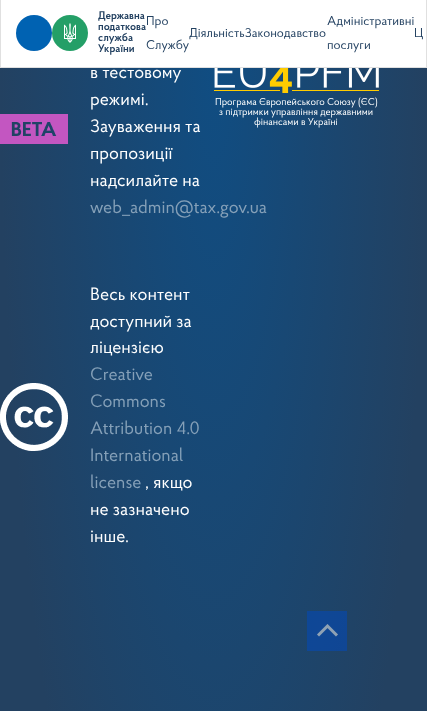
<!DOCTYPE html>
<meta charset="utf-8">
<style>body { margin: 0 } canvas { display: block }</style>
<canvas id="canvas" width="427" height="711"></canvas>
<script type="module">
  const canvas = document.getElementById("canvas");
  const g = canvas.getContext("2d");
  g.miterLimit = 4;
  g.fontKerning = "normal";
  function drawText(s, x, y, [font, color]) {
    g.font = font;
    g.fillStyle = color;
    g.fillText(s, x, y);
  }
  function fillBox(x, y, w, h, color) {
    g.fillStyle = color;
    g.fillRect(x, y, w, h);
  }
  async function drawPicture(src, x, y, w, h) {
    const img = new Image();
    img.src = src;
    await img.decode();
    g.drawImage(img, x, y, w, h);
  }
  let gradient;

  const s1 = ["600 11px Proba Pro", "#234161"];
  const s2 = ["12.75px Proba Pro", "#234161"];
  const s3 = ["18px Proba Pro", "#FFFFFF"];
  const s4 = ["18px Proba Pro", "#85A0B8"];
  const s5 = ["10px Proba Pro", "#FFFFFF"];

  fillBox(0, 0, 427, 711, "#FFFFFF");
  g.strokeStyle = "#E0E0E0";
  g.strokeRect(0.5, -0.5, 426, 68);
  g.fillStyle = "#0062B2";
  g.beginPath();
  g.arc(34, 33, 18, 0, Math.PI * 2);
  g.fill();
  g.fillStyle = "#249F67";
  g.beginPath();
  g.arc(70, 33, 18, 0, Math.PI * 2);
  g.fill();
  await drawPicture("pic1.png", 64, 23, 12, 20);
  drawText("Державна", 98, 19, s1);
  drawText("податкова", 98, 30, s1);
  drawText("служба", 98, 41, s1);
  drawText("України", 98, 52, s1);
  drawText("Про", 146, 25, s2);
  drawText("Службу", 146, 49, s2);
  drawText("ДіяльністьЗаконодавство", 189, 37, s2);
  drawText("Адміністративні", 327, 25, s2);
  drawText("послуги", 327, 49, s2);
  drawText("Ц", 414, 37, s2);
  gradient = g.createRadialGradient(214, 12.52, 0, 214, 12.52, 214);
  gradient.addColorStop(0, "#104D82");
  gradient.addColorStop(1, "#234161");
  g.fillStyle = gradient;
  g.beginPath();
  g.rect(0, 68, 427, 643);
  g.save();
  g.clip();
  g.scale(1, 1043 / 214);
  g.fillRect(0, 0, 427, 146);
  g.restore();
  drawText("в тестовому", 90, 78, s3);
  drawText("режимі.", 90, 105, s3);
  await drawPicture("pic2.png", 0, 114, 68, 30);
  drawText("Зауваження та", 90, 132, s3);
  drawText("пропозиції", 90, 159, s3);
  drawText("надсилайте на", 90, 186, s3);
  drawText("web_admin@tax.gov.ua", 90, 213, s4);
  drawText("Весь контент", 90, 300, s3);
  drawText("доступний за", 90, 327, s3);
  drawText("ліцензією", 90, 353, s3);
  drawText("Creative", 90, 380, s4);
  await drawPicture("pic3.png", 0, 383, 68, 68);
  drawText("Commons", 90, 407, s4);
  drawText("Attribution 4.0", 90, 434, s4);
  drawText("International", 90, 461, s4);
  drawText("license", 90, 488, s4);
  drawText(", якщо", 145, 488, s3);
  drawText("не зазначено", 90, 515, s3);
  drawText("інше.", 90, 542, s3);
  await drawPicture("pic4.png", 214, 68, 165, 25);
  drawText("Програма Європейського Союзу (ЄС)", 215, 105, s5);
  drawText("з підтримки управління державними", 219, 115, s5);
  drawText("фінансами в Україні", 254, 125, s5);
  await drawPicture("pic5.png", 307, 611, 40, 40);
</script>
